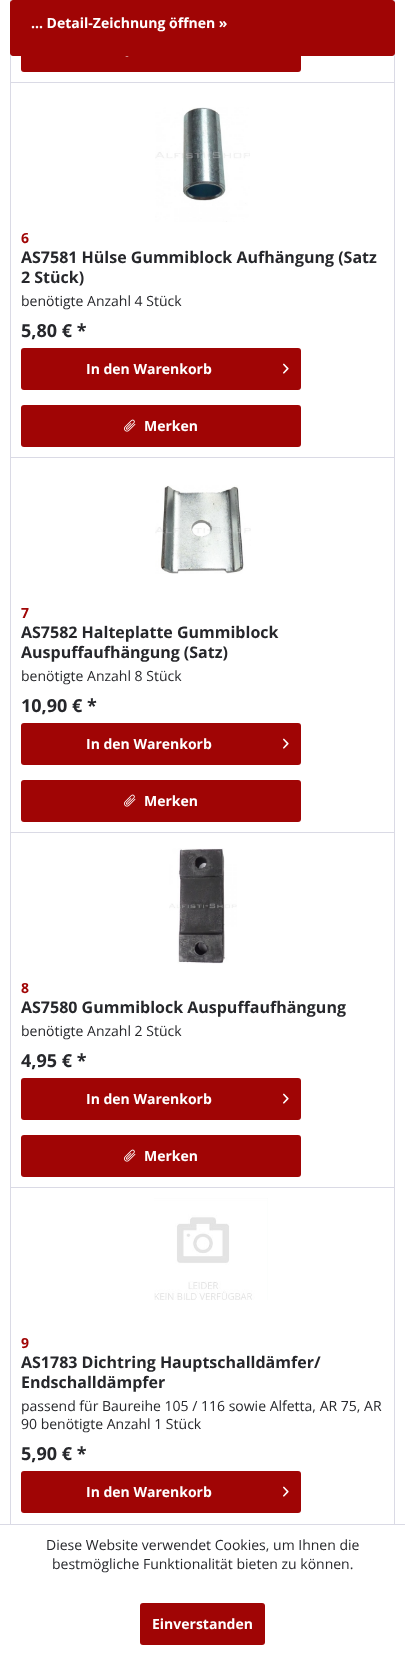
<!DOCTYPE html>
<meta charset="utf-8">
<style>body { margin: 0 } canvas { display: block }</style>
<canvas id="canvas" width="405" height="1655"></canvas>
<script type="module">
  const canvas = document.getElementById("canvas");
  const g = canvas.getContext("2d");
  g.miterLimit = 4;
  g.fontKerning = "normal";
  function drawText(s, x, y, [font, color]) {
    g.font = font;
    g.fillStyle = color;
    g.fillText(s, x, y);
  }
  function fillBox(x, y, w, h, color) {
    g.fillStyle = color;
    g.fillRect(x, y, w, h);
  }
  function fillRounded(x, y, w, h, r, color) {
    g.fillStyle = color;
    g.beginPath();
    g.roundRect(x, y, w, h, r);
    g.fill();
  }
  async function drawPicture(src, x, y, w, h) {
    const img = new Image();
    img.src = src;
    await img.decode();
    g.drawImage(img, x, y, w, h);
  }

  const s1 = ["bold 14px Open Sans", "#FFFFFF"];
  const s2 = ["bold 14px Open Sans", "#A00505"];
  const s3 = ["bold 16px Open Sans", "#26272B"];
  const s4 = ["14px Open Sans", "#26272B"];
  const s5 = ["bold 18px Open Sans", "#26272B"];

  fillBox(0, 0, 405, 1655, "#FFFFFF");
  fillBox(394, 0, 1, 82, "#DADAE5");
  fillBox(10, 0, 1, 82, "#DADAE5");
  fillRounded(21, 30, 280, 42, 3, "#A00505");
  g.beginPath();
  g.roundRect(10.5, 0.5, 384, 55, 2.5);
  g.fill();
  g.strokeStyle = "#A00505";
  g.stroke();
  drawText("... Detail-Zeichnung öffnen »", 31, 28, s1);
  await drawPicture("pic1.png", 125, 56, 4, 1);
  fillBox(10, 82, 385, 1, "#DADAE5");
  fillBox(394, 82, 1, 375, "#DADAE5");
  fillBox(10, 82, 1, 375, "#DADAE5");
  await drawPicture("pic2.png", 155, 107, 95, 115);
  drawText("6", 21, 243, s2);
  drawText("AS7581 Hülse Gummiblock Aufhängung (Satz", 21, 263, s3);
  drawText("2 Stück)", 21, 283, s3);
  drawText("benötigte Anzahl 4 Stück", 21, 306, s4);
  drawText("5,80 € *", 21, 337, s5);
  fillRounded(21, 348, 280, 42, 3, "#A00505");
  drawText("In den Warenkorb", 86, 374, s1);
  await drawPicture("pic3.png", 283, 363, 6, 11);
  fillRounded(21, 405, 280, 42, 3, "#A00505");
  await drawPicture("pic4.png", 124, 419, 12, 13);
  drawText("Merken", 144, 431, s1);
  fillBox(10, 457, 385, 1, "#DADAE5");
  fillBox(394, 457, 1, 375, "#DADAE5");
  fillBox(10, 457, 1, 375, "#DADAE5");
  await drawPicture("pic5.png", 155, 485, 96, 89);
  drawText("7", 21, 618, s2);
  drawText("AS7582 Halteplatte Gummiblock", 21, 638, s3);
  drawText("Auspuffaufhängung (Satz)", 21, 658, s3);
  drawText("benötigte Anzahl 8 Stück", 21, 681, s4);
  drawText("10,90 € *", 21, 712, s5);
  fillRounded(21, 723, 280, 42, 3, "#A00505");
  drawText("In den Warenkorb", 86, 749, s1);
  await drawPicture("pic3.png", 283, 738, 6, 11);
  fillRounded(21, 780, 280, 42, 3, "#A00505");
  await drawPicture("pic4.png", 124, 794, 12, 13);
  drawText("Merken", 144, 806, s1);
  fillBox(10, 832, 385, 1, "#DADAE5");
  fillBox(394, 832, 1, 355, "#DADAE5");
  fillBox(10, 832, 1, 355, "#DADAE5");
  await drawPicture("pic6.png", 169, 848, 68, 116);
  drawText("8", 21, 993, s2);
  drawText("AS7580 Gummiblock Auspuffaufhängung", 21, 1013, s3);
  drawText("benötigte Anzahl 2 Stück", 21, 1036, s4);
  drawText("4,95 € *", 21, 1067, s5);
  fillRounded(21, 1078, 280, 42, 3, "#A00505");
  drawText("In den Warenkorb", 86, 1104, s1);
  await drawPicture("pic3.png", 283, 1093, 6, 11);
  fillRounded(21, 1135, 280, 42, 3, "#A00505");
  await drawPicture("pic4.png", 124, 1149, 12, 13);
  drawText("Merken", 144, 1161, s1);
  fillBox(10, 1187, 385, 1, "#DADAE5");
  fillBox(394, 1187, 1, 337, "#DADAE5");
  fillBox(10, 1187, 1, 337, "#DADAE5");
  await drawPicture("pic7.png", 154, 1198, 114, 102);
  drawText("9", 21, 1348, s2);
  drawText("AS1783 Dichtring Hauptschalldämfer/", 21, 1368, s3);
  drawText("Endschalldämpfer", 21, 1388, s3);
  drawText("passend für Baureihe 105 / 116 sowie Alfetta, AR 75, AR", 21, 1411, s4);
  drawText("90 benötigte Anzahl 1 Stück", 21, 1429, s4);
  drawText("5,90 € *", 21, 1460, s5);
  fillRounded(21, 1471, 280, 42, 3, "#A00505");
  drawText("In den Warenkorb", 86, 1497, s1);
  await drawPicture("pic3.png", 283, 1486, 6, 11);
  fillBox(0, 1524, 405, 1, "#DADAE5");
  drawText("Diese Website verwendet Cookies, um Ihnen die", 46, 1550, s4);
  drawText("bestmögliche Funktionalität bieten zu können.", 52, 1569, s4);
  fillRounded(140, 1603, 125, 42, 3, "#A00505");
  drawText("Einverstanden", 152, 1629, s1);
</script>
